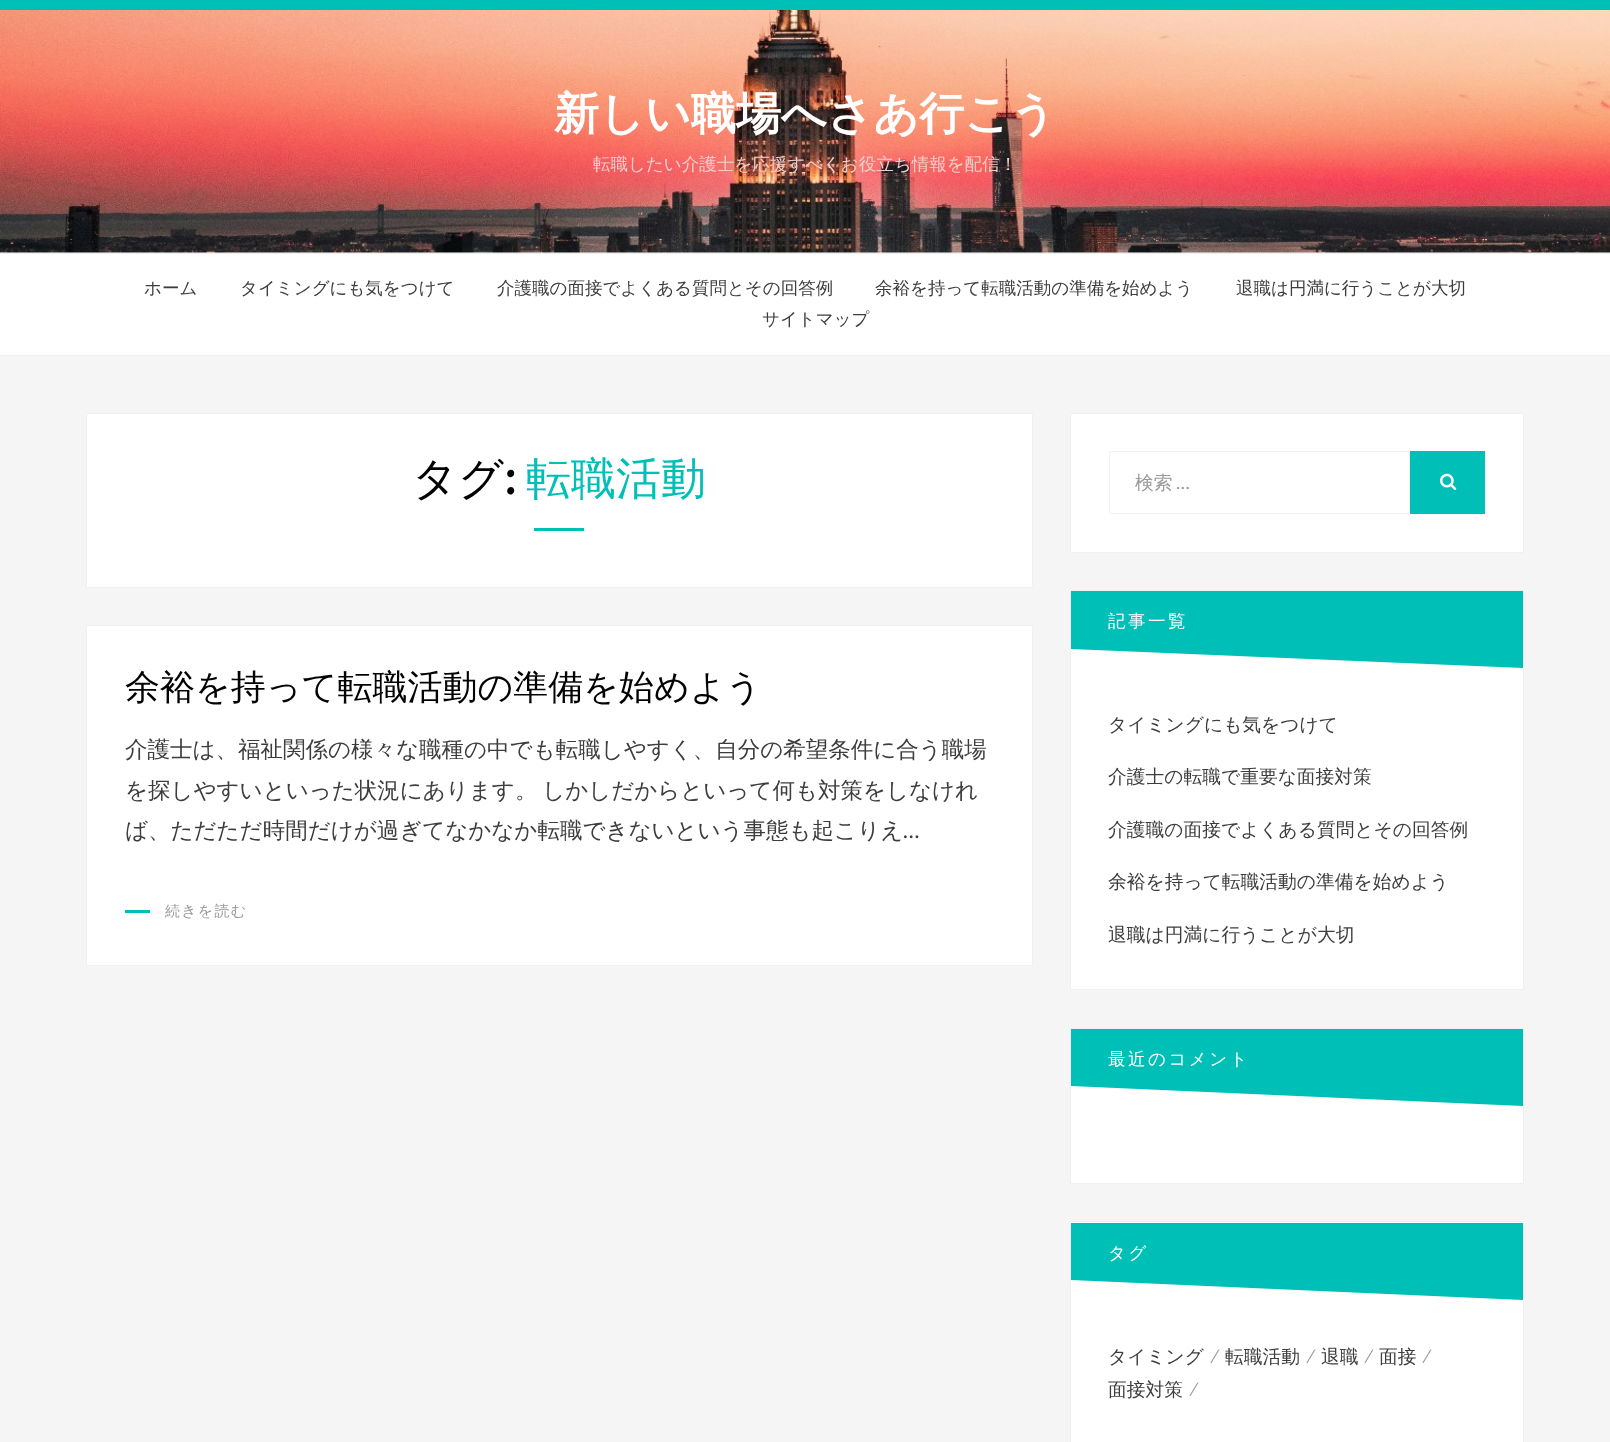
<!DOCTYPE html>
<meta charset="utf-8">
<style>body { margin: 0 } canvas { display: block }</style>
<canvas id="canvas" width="1610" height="1442"></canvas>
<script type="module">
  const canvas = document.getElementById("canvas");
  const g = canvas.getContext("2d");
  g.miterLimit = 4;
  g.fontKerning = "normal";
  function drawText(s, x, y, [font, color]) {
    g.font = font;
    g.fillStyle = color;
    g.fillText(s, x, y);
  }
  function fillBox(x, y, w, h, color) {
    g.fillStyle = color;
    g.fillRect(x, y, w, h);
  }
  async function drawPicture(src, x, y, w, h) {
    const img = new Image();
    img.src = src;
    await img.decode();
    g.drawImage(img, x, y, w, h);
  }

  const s1 = ["bold 45px WenQuanYi Zen Hei", "#FFFFFF"];
  const s2 = ["500 17.5px WenQuanYi Zen Hei", "#F1CECC"];
  const s3 = ["500 17.5px WenQuanYi Zen Hei", "#3D3D3D"];
  const s4 = ["500 45px WenQuanYi Zen Hei", "#020202"];
  const s5 = ["45px Merriweather Sans", "#020202"];
  const s6 = ["500 45px WenQuanYi Zen Hei", "#00BFB6"];
  const s7 = ["500 35px WenQuanYi Zen Hei", "#020202"];
  const s8 = ["500 22.5px WenQuanYi Zen Hei", "#3D3D3D"];
  const s9 = ["22.5px Lato", "#3D3D3D"];
  const s10 = ["500 15px WenQuanYi Zen Hei", "#999999"];
  const s11 = ["500 18.75px WenQuanYi Zen Hei", "#999999"];
  const s12 = ["18.75px Lato", "#999999"];
  const s13 = ["500 17.5px WenQuanYi Zen Hei", "#FFFFFF"];
  const s14 = ["500 18.75px WenQuanYi Zen Hei", "#3D3D3D"];

  fillBox(0, 0, 1610, 1442, "#F5F5F5");
  fillBox(0, 252, 1610, 1, "#FFFFFF");
  await drawPicture("pic1.png", 0, 10, 1610, 243);
  fillBox(0, 0, 1610, 10, "#00BFB6");
  drawText("新しい職場へさあ行こう", 554, 129, s1);
  drawText("転職したい介護士を応援すべくお役立ち情報を配信！", 593, 170, s2);
  fillBox(0, 254, 1610, 101, "#FFFFFF");
  fillBox(0, 253, 1610, 1, "#F0F0F0");
  fillBox(0, 355, 1610, 1, "#F0F0F0");
  drawText("ホーム", 144, 294, s3);
  drawText("タイミングにも気をつけて", 240, 294, s3);
  drawText("介護職の面接でよくある質問とその回答例", 497, 294, s3);
  drawText("余裕を持って転職活動の準備を始めよう", 875, 294, s3);
  drawText("退職は円満に行うことが大切", 1236, 294, s3);
  drawText("サイトマップ", 762, 325, s3);
  g.fillStyle = "#FFFFFF";
  g.beginPath();
  g.rect(86.5, 413.5, 946, 174);
  g.fill();
  g.strokeStyle = "#F0F0F0";
  g.stroke();
  drawText("タグ", 412, 494, s4);
  drawText(":", 504, 494, s5);
  drawText("転職活動", 526, 494, s6);
  fillBox(534, 528, 50, 3, "#00BFB6");
  g.fillStyle = "#FFFFFF";
  g.beginPath();
  g.rect(86.5, 625.5, 946, 340);
  g.fill();
  g.stroke();
  drawText("余裕を持って転職活動の準備を始めよう", 125, 699, s7);
  drawText("介護士は、福祉関係の様々な職種の中でも転職しやすく、自分の希望条件に合う職場", 125, 757, s8);
  g.wordSpacing = "-2px";
  drawText("を探しやすいといった状況にあります。 しかしだからといって何も対策をしなけれ", 125, 798, s8);
  g.wordSpacing = "0px";
  drawText("ば、ただただ時間だけが過ぎてなかなか転職できないという事態も起こりえ", 125, 838, s8);
  drawText("…", 903, 838, s9);
  fillBox(125, 910, 25, 3, "#00BFB6");
  g.letterSpacing = "1.25px";
  drawText("続きを読む", 165, 916, s10);
  g.fillStyle = "#FFFFFF";
  g.beginPath();
  g.rect(1070.5, 413.5, 453, 139);
  g.fill();
  g.stroke();
  g.beginPath();
  g.roundRect(1109.5, 451.5, 300, 62, 2);
  g.stroke();
  g.letterSpacing = "0px";
  drawText("検索", 1135, 489, s11);
  drawText("…", 1176, 489, s12);
  fillBox(1410, 451, 75, 63, "#00BFB6");
  await drawPicture("pic2.png", 1440, 473, 17, 17);
  fillBox(1071, 670, 452, 319, "#FFFFFF");
  g.strokeRect(1070.5, 590.5, 453, 399);
  fillBox(1071, 591, 452, 77, "#00BFB6");
  g.letterSpacing = "2.5px";
  drawText("記事一覧", 1108, 627, s13);
  g.save();
  g.beginPath();
  g.rect(1071, 591, 452, 79);
  g.clip();
  g.beginPath();
  g.moveTo(1050, 648);
  g.lineTo(1546, 669);
  g.lineTo(1543, 732);
  g.lineTo(1047, 710);
  g.closePath();
  g.fill();
  g.restore();
  g.letterSpacing = "0px";
  drawText("タイミングにも気をつけて", 1108, 731, s14);
  drawText("介護士の転職で重要な面接対策", 1108, 783, s14);
  drawText("介護職の面接でよくある質問とその回答例", 1108, 836, s14);
  drawText("余裕を持って転職活動の準備を始めよう", 1108, 888, s14);
  drawText("退職は円満に行うことが大切", 1108, 941, s14);
  fillBox(1071, 1108, 452, 75, "#FFFFFF");
  g.strokeRect(1070.5, 1028.5, 453, 155);
  fillBox(1071, 1029, 452, 77, "#00BFB6");
  g.letterSpacing = "2.5px";
  drawText("最近のコメント", 1108, 1065, s13);
  g.save();
  g.beginPath();
  g.rect(1071, 1029, 452, 79);
  g.clip();
  g.beginPath();
  g.moveTo(1050, 1085);
  g.lineTo(1546, 1107);
  g.lineTo(1543, 1169);
  g.lineTo(1047, 1148);
  g.closePath();
  g.fill();
  g.restore();
  g.beginPath();
  g.rect(1070.5, 1221.5, 453, 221);
  g.fill();
  g.stroke();
  fillBox(1071, 1223, 452, 77, "#00BFB6");
  drawText("タグ", 1108, 1259, s13);
  g.save();
  g.beginPath();
  g.rect(1071, 1223, 452, 78);
  g.clip();
  g.beginPath();
  g.moveTo(1050, 1279);
  g.lineTo(1546, 1301);
  g.lineTo(1543, 1363);
  g.lineTo(1047, 1342);
  g.closePath();
  g.fill();
  g.restore();
  g.letterSpacing = "0px";
  drawText("タイミング", 1108, 1363, s14);
  drawText("⁄", 1212, 1363, s12);
  drawText("転職活動", 1225, 1363, s14);
  drawText("⁄", 1308, 1363, s12);
  drawText("退職", 1321, 1363, s14);
  drawText("⁄", 1366, 1363, s12);
  drawText("面接", 1379, 1363, s14);
  drawText("⁄", 1424, 1363, s12);
  drawText("面接対策", 1108, 1396, s14);
  drawText("⁄", 1191, 1396, s12);
</script>
